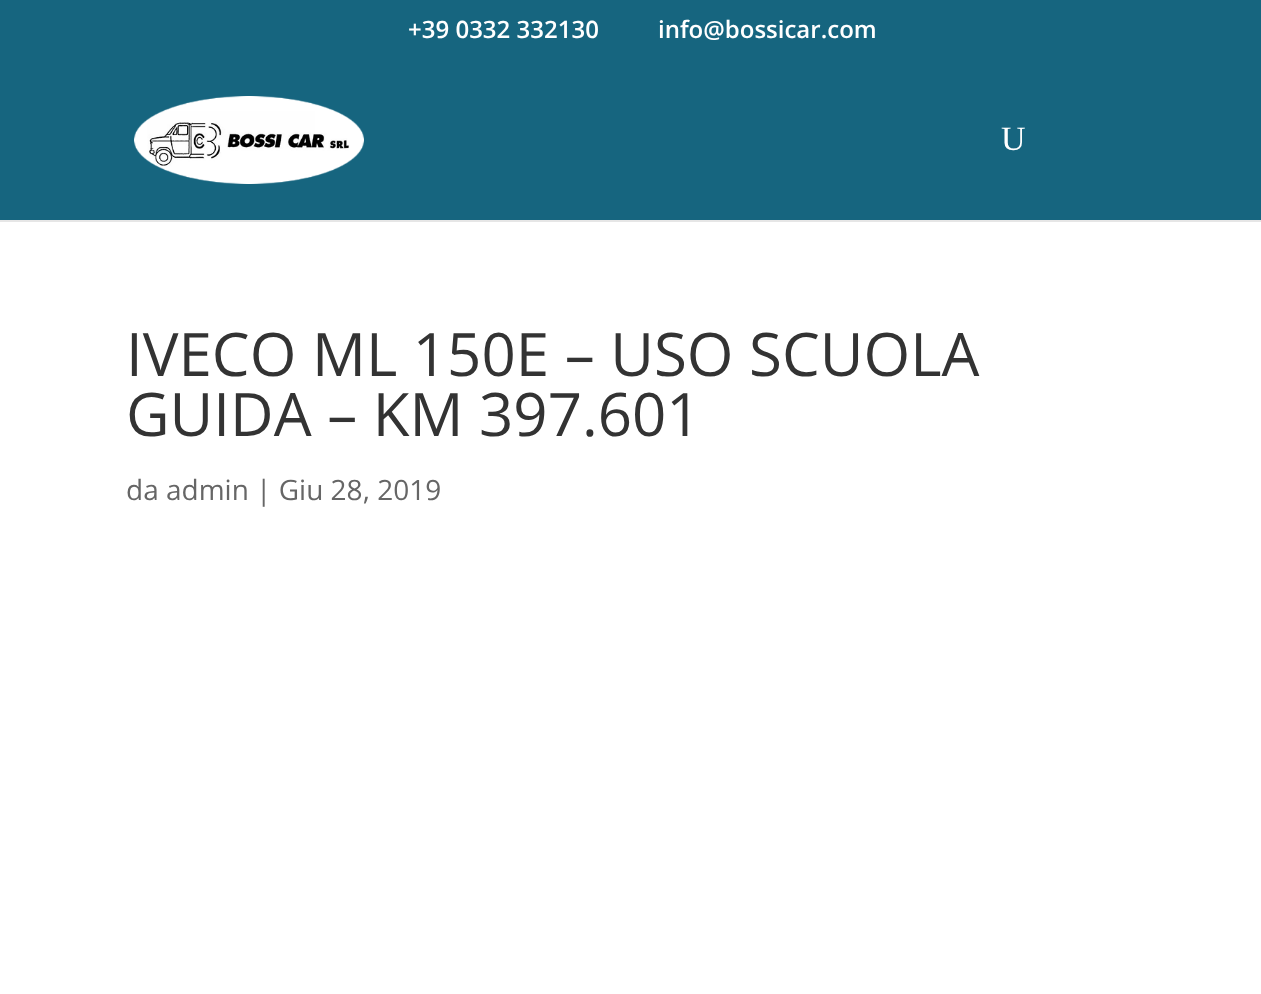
<!DOCTYPE html>
<meta charset="utf-8">
<style>body { margin: 0 } canvas { display: block }</style>
<canvas id="canvas" width="1261" height="994"></canvas>
<script type="module">
  const canvas = document.getElementById("canvas");
  const g = canvas.getContext("2d");
  g.miterLimit = 4;
  g.fontKerning = "normal";
  function drawText(s, x, y, [font, color]) {
    g.font = font;
    g.fillStyle = color;
    g.fillText(s, x, y);
  }
  function fillBox(x, y, w, h, color) {
    g.fillStyle = color;
    g.fillRect(x, y, w, h);
  }
  async function drawPicture(src, x, y, w, h) {
    const img = new Image();
    img.src = src;
    await img.decode();
    g.drawImage(img, x, y, w, h);
  }

  const s1 = ["600 24px Open Sans", "#FFFFFF"];
  const s2 = ["34px Liberation Serif", "#FFFFFF"];
  const s3 = ["60px Open Sans", "#333333"];
  const s4 = ["28px Open Sans", "#666666"];

  fillBox(0, 0, 1261, 994, "#FFFFFF");
  fillBox(0, 0, 1261, 220, "#16657F");
  drawText("+39 0332 332130", 408, 38, s1);
  drawText("info@bossicar.com", 658, 38, s1);
  fillBox(0, 220, 1261, 2, "#E6E6E6");
  await drawPicture("pic1.png", 134, 96, 230, 88);
  drawText("U", 1001, 150, s2);
  drawText("IVECO ML 150E – USO SCUOLA", 126, 376, s3);
  drawText("GUIDA – KM 397.601", 126, 436, s3);
  drawText("da admin | Giu 28, 2019", 126, 500, s4);
</script>
